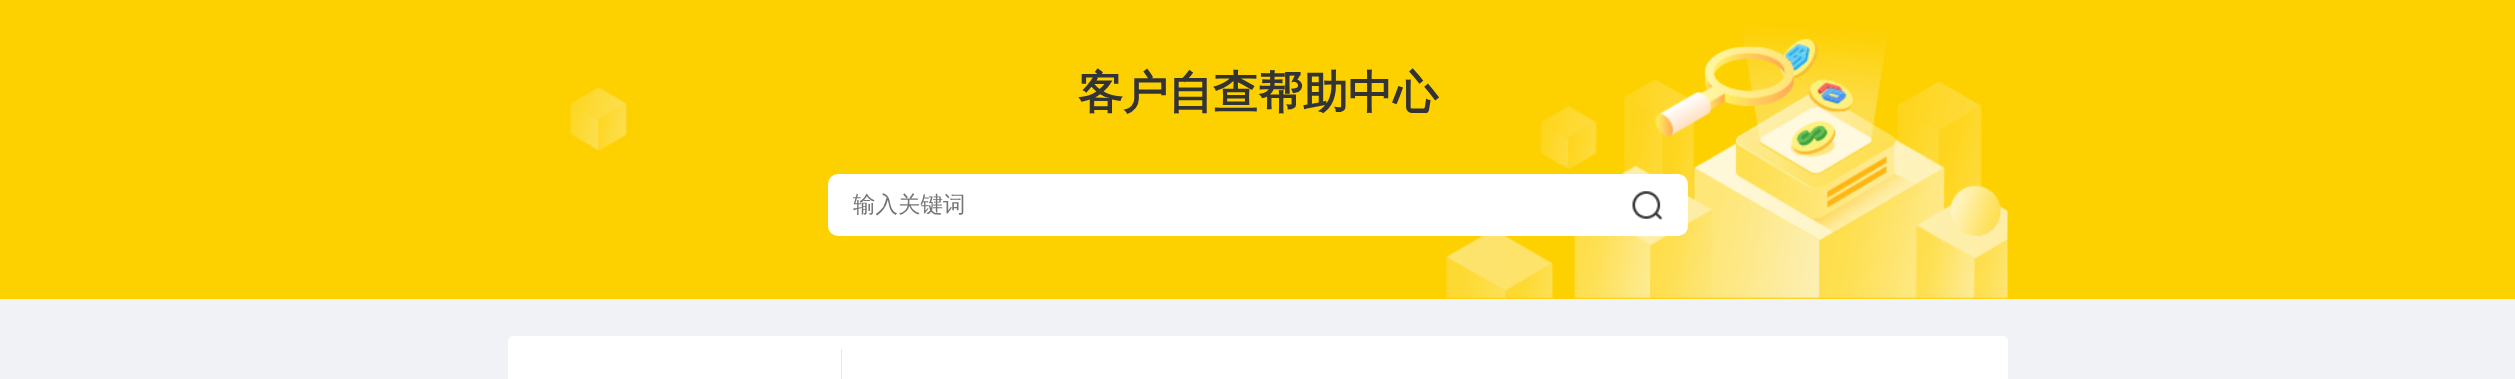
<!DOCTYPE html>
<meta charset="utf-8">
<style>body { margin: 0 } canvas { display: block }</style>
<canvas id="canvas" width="2515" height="379"></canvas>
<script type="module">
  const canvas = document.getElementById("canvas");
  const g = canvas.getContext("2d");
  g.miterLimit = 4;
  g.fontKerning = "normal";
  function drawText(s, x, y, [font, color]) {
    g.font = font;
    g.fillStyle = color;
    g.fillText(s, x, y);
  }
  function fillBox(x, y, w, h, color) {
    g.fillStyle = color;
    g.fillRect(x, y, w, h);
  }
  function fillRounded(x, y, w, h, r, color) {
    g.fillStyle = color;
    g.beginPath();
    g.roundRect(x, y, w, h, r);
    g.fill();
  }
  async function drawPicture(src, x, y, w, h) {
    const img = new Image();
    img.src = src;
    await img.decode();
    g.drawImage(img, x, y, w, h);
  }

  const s1 = ["bold 45px WenQuanYi Zen Hei", "#333333"];
  const s2 = ["500 22.5px WenQuanYi Zen Hei", "#757575"];

  fillBox(0, 0, 2515, 379, "#F1F2F6");
  fillBox(0, 0, 2515, 299, "#FDD000");
  await drawPicture("pic1.png", 570, 26, 1438, 273);
  drawText("客户自查帮助中心", 1078, 108, s1);
  fillRounded(828, 174, 860, 62, 10, "#FFFFFF");
  g.save();
  g.beginPath();
  g.rect(853, 190, 730, 30);
  g.clip();
  drawText("输入关键词", 853, 212, s2);
  g.restore();
  await drawPicture("pic2.png", 1632, 191, 31, 29);
  fillRounded(508, 336, 1500, 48, 5, "#FFFFFF");
  fillBox(841, 349, 1, 30, "#E9E9E9");
</script>
